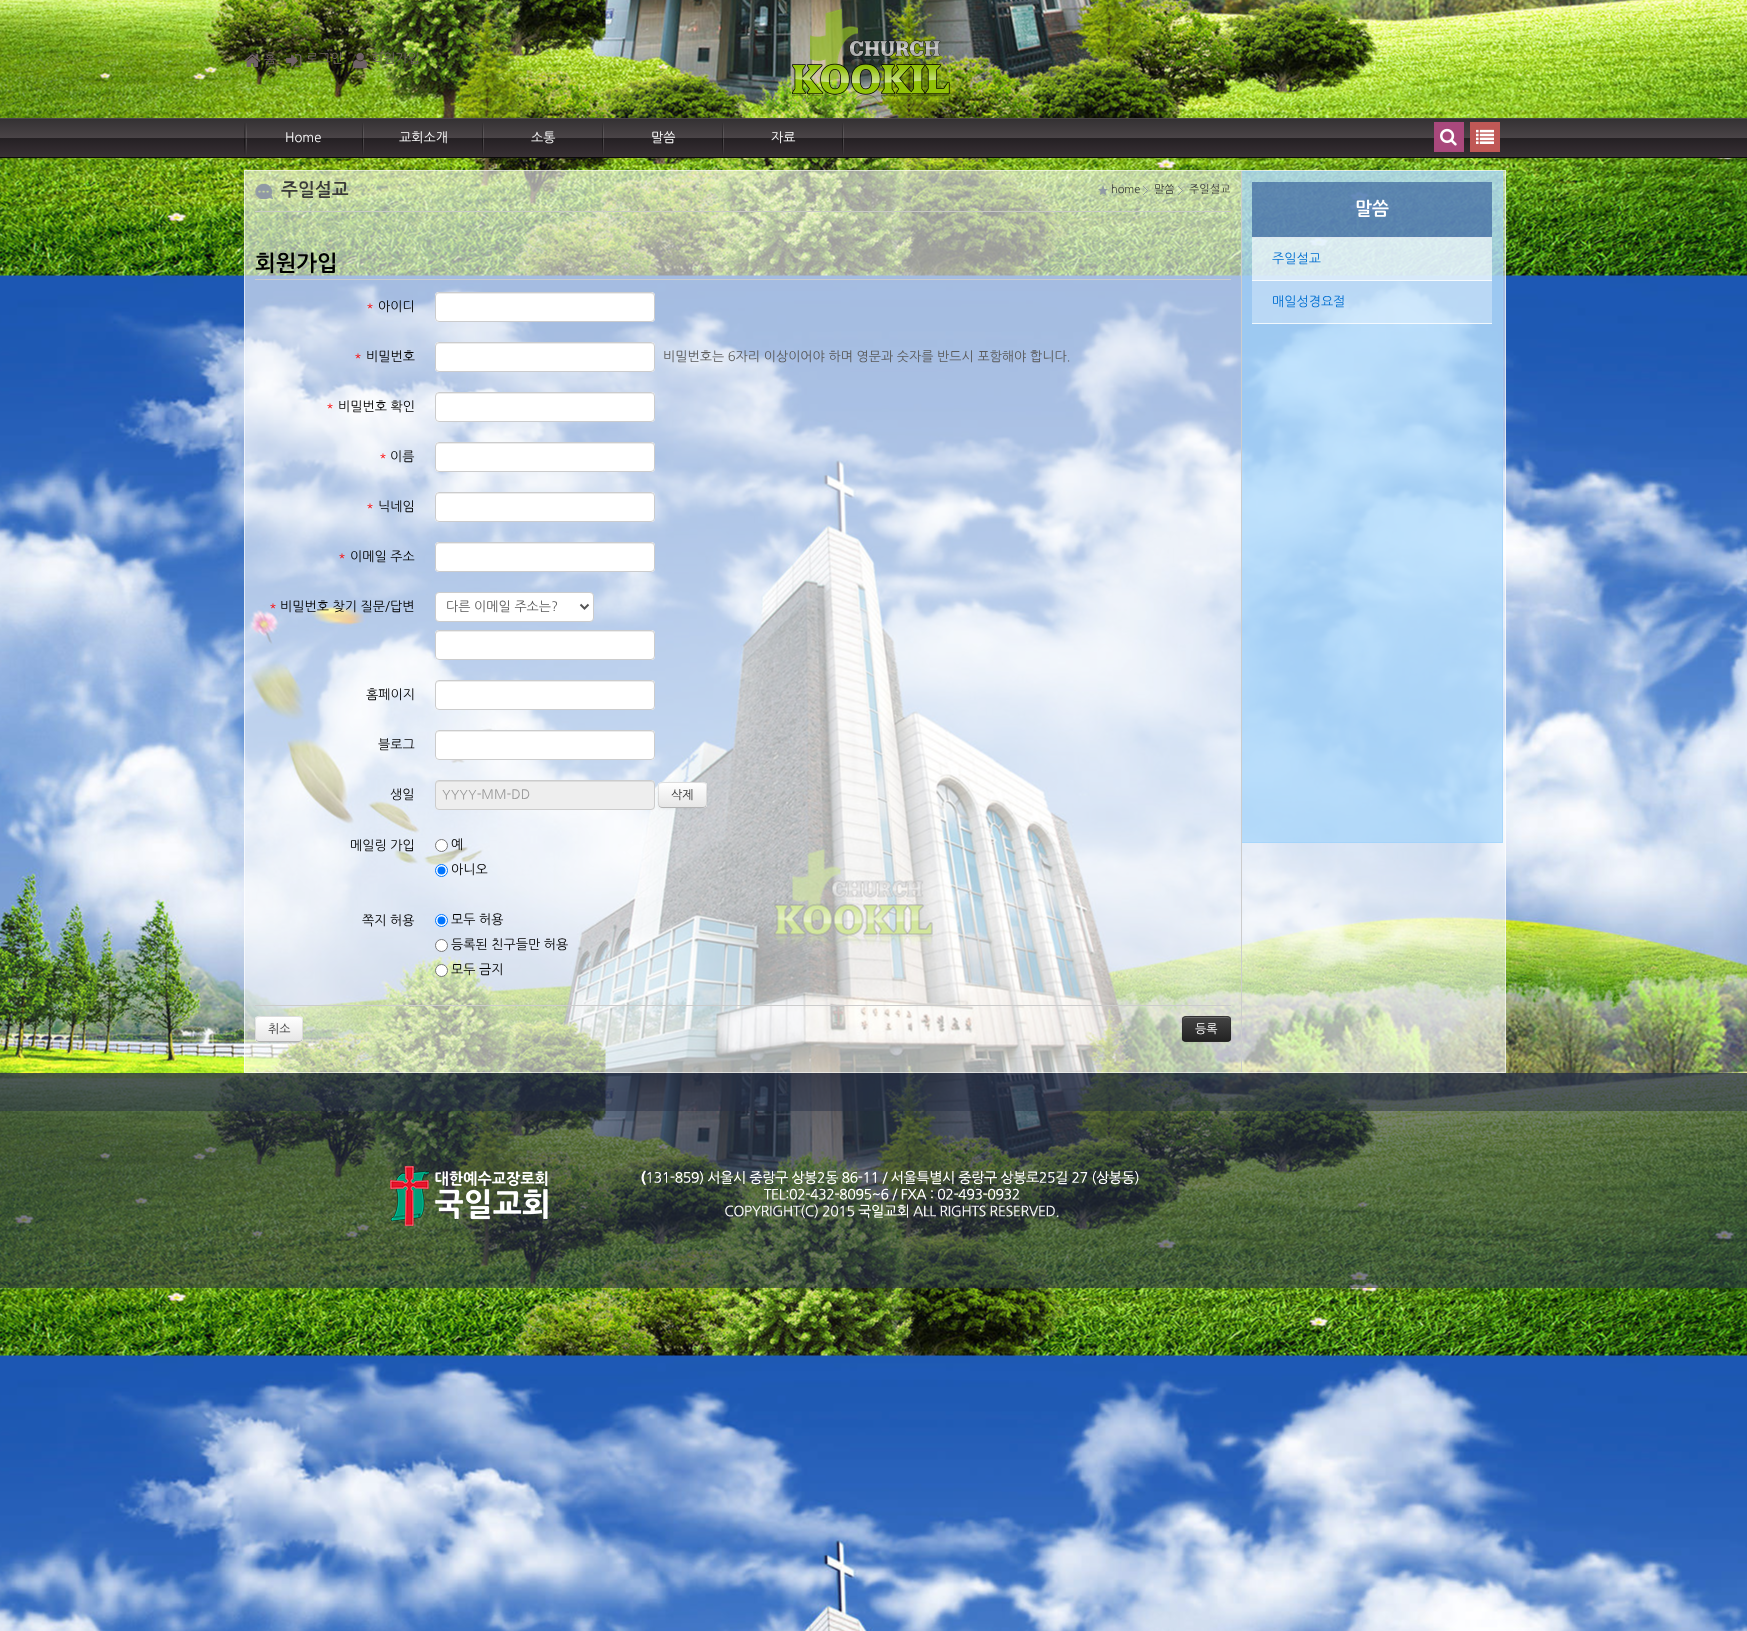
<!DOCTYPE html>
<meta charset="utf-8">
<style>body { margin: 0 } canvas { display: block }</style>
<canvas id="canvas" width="1747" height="1631"></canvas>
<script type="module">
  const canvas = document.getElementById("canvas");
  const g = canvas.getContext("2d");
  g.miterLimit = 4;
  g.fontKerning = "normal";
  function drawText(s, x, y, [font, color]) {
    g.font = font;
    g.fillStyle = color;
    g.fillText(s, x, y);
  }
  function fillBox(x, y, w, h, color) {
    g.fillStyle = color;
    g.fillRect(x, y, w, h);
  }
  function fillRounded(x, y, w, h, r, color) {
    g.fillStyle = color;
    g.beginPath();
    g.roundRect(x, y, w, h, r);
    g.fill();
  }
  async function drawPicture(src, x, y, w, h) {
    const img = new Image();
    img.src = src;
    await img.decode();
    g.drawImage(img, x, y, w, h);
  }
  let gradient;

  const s1 = ["13px NanumGothic", "#706367"];
  const s2 = ["13px NanumGothic", "#FFFFFF"];
  const s3 = ["bold 18px NanumGothic", "#3A3A3A"];
  const s4 = ["11px NanumGothic", "#3A3A3A"];
  const s5 = ["bold 22px NanumGothic", "#000000"];
  const s6 = ["13px NanumGothic", "#FF0000"];
  const s7 = ["13px NanumGothic", "#000000"];
  const s8 = ["13px NanumGothic", "#595959"];
  const s9 = ["13px NanumGothic", "#999999"];
  const s10 = ["12px NanumGothic", "#333333"];
  const s11 = ["12px NanumGothic", "#FFFFFF"];
  const s12 = ["bold 18px NanumGothic", "#FFFFFF"];
  const s13 = ["13px NanumGothic", "#016FD1"];

  fillBox(0, 0, 1747, 1631, "#FFFFFF");
  await drawPicture("pic1.png", 0, 0, 1747, 1631);
  await drawPicture("pic2.png", 244, 54, 17, 13);
  drawText("홈", 264, 63, s1);
  await drawPicture("pic3.png", 286, 54, 16, 13);
  drawText("로그인", 306, 63, s1);
  await drawPicture("pic4.png", 353, 52, 15, 17);
  drawText("회원가입", 371, 63, s1);
  await drawPicture("pic5.png", 791, 8, 159, 98);
  gradient = g.createLinearGradient(874, 119, 874, 157);
  gradient.addColorStop(0, "#343133");
  gradient.addColorStop(0.5, "#4A4447");
  gradient.addColorStop(0.5, "#242023");
  gradient.addColorStop(1, "#383035");
  g.fillStyle = gradient;
  g.fillRect(0, 119, 1747, 38);
  fillBox(0, 118, 1747, 1, "#4A454A");
  fillBox(0, 157, 1747, 1, "#0B0A0A");
  await drawPicture("pic6.png", 244, 123, 3, 32);
  await drawPicture("pic7.png", 362, 123, 2, 32);
  drawText("Home", 285, 142, s2);
  await drawPicture("pic7.png", 482, 123, 2, 32);
  drawText("교회소개", 399, 142, s2);
  await drawPicture("pic7.png", 602, 123, 2, 32);
  drawText("소통", 531, 142, s2);
  await drawPicture("pic7.png", 722, 123, 2, 32);
  drawText("말씀", 651, 142, s2);
  await drawPicture("pic7.png", 842, 123, 2, 32);
  drawText("자료", 771, 142, s2);
  fillBox(1434, 122, 30, 30, "#A9487C");
  await drawPicture("pic8.png", 1440, 128, 17, 18);
  fillBox(1470, 122, 30, 30, "#C05856");
  await drawPicture("pic9.png", 1476, 129, 18, 15);
  fillBox(244, 170, 1262, 903, "rgba(255, 255, 255, 0.6)");
  g.strokeStyle = "rgba(255, 255, 255, 0.6)";
  g.strokeRect(244.5, 170.5, 1261, 902);
  fillBox(1241, 171, 1, 901, "#CCCCCC");
  fillBox(255, 211, 976, 1, "#C9C9C9");
  await drawPicture("pic10.png", 255, 183, 18, 16);
  g.save();
  g.beginPath();
  g.rect(255, 181, 976, 30);
  g.clip();
  drawText("주일설교", 281, 196, s3);
  g.restore();
  await drawPicture("pic11.png", 1098, 185, 10, 10);
  drawText("home", 1111, 193, s4);
  await drawPicture("pic12.png", 1143, 186, 5, 9);
  drawText("말씀", 1154, 193, s4);
  await drawPicture("pic13.png", 1178, 186, 5, 9);
  drawText("주일설교", 1189, 193, s4);
  fillBox(255, 279, 976, 1, "#CCCCCC");
  drawText("회원가입", 255, 271, s5);
  drawText("*", 366, 311, s6);
  drawText("아이디", 378, 311, s7);
  fillRounded(435, 292, 220, 30, 4, "#FFFFFF");
  g.fillStyle = "#ECECEC";
  g.beginPath();
  g.moveTo(439, 294);
  g.lineTo(651, 294);
  g.bezierCurveTo(653, 294, 654, 295, 654, 297);
  g.lineTo(654, 296);
  g.bezierCurveTo(654, 294, 653, 293, 651, 293);
  g.lineTo(439, 293);
  g.bezierCurveTo(437, 293, 436, 294, 436, 296);
  g.lineTo(436, 297);
  g.bezierCurveTo(436, 295, 437, 294, 439, 294);
  g.closePath();
  g.fill();
  g.beginPath();
  g.roundRect(435.5, 292.5, 219, 29, 3.5);
  g.strokeStyle = "#CCCCCC";
  g.stroke();
  drawText("*", 354, 361, s6);
  drawText("비밀번호", 366, 361, s7);
  fillRounded(435, 342, 220, 30, 4, "#FFFFFF");
  g.fillStyle = "#ECECEC";
  g.beginPath();
  g.moveTo(439, 344);
  g.lineTo(651, 344);
  g.bezierCurveTo(653, 344, 654, 345, 654, 347);
  g.lineTo(654, 346);
  g.bezierCurveTo(654, 344, 653, 343, 651, 343);
  g.lineTo(439, 343);
  g.bezierCurveTo(437, 343, 436, 344, 436, 346);
  g.lineTo(436, 347);
  g.bezierCurveTo(436, 345, 437, 344, 439, 344);
  g.closePath();
  g.fill();
  g.beginPath();
  g.roundRect(435.5, 342.5, 219, 29, 3.5);
  g.stroke();
  drawText("비밀번호는 6자리 이상이어야 하며 영문과 숫자를 반드시 포함해야 합니다.", 663, 361, s8);
  drawText("*", 326, 411, s6);
  drawText("비밀번호 확인", 338, 411, s7);
  fillRounded(435, 392, 220, 30, 4, "#FFFFFF");
  g.fillStyle = "#ECECEC";
  g.beginPath();
  g.moveTo(439, 394);
  g.lineTo(651, 394);
  g.bezierCurveTo(653, 394, 654, 395, 654, 397);
  g.lineTo(654, 396);
  g.bezierCurveTo(654, 394, 653, 393, 651, 393);
  g.lineTo(439, 393);
  g.bezierCurveTo(437, 393, 436, 394, 436, 396);
  g.lineTo(436, 397);
  g.bezierCurveTo(436, 395, 437, 394, 439, 394);
  g.closePath();
  g.fill();
  g.beginPath();
  g.roundRect(435.5, 392.5, 219, 29, 3.5);
  g.stroke();
  drawText("*", 379, 461, s6);
  drawText("이름", 390, 461, s7);
  fillRounded(435, 442, 220, 30, 4, "#FFFFFF");
  g.fillStyle = "#ECECEC";
  g.beginPath();
  g.moveTo(439, 444);
  g.lineTo(651, 444);
  g.bezierCurveTo(653, 444, 654, 445, 654, 447);
  g.lineTo(654, 446);
  g.bezierCurveTo(654, 444, 653, 443, 651, 443);
  g.lineTo(439, 443);
  g.bezierCurveTo(437, 443, 436, 444, 436, 446);
  g.lineTo(436, 447);
  g.bezierCurveTo(436, 445, 437, 444, 439, 444);
  g.closePath();
  g.fill();
  g.beginPath();
  g.roundRect(435.5, 442.5, 219, 29, 3.5);
  g.stroke();
  drawText("*", 366, 511, s6);
  drawText("닉네임", 378, 511, s7);
  fillRounded(435, 492, 220, 30, 4, "#FFFFFF");
  g.fillStyle = "#ECECEC";
  g.beginPath();
  g.moveTo(439, 494);
  g.lineTo(651, 494);
  g.bezierCurveTo(653, 494, 654, 495, 654, 497);
  g.lineTo(654, 496);
  g.bezierCurveTo(654, 494, 653, 493, 651, 493);
  g.lineTo(439, 493);
  g.bezierCurveTo(437, 493, 436, 494, 436, 496);
  g.lineTo(436, 497);
  g.bezierCurveTo(436, 495, 437, 494, 439, 494);
  g.closePath();
  g.fill();
  g.beginPath();
  g.roundRect(435.5, 492.5, 219, 29, 3.5);
  g.stroke();
  drawText("*", 338, 561, s6);
  drawText("이메일 주소", 350, 561, s7);
  fillRounded(435, 542, 220, 30, 4, "#FFFFFF");
  g.fillStyle = "#ECECEC";
  g.beginPath();
  g.moveTo(439, 544);
  g.lineTo(651, 544);
  g.bezierCurveTo(653, 544, 654, 545, 654, 547);
  g.lineTo(654, 546);
  g.bezierCurveTo(654, 544, 653, 543, 651, 543);
  g.lineTo(439, 543);
  g.bezierCurveTo(437, 543, 436, 544, 436, 546);
  g.lineTo(436, 547);
  g.bezierCurveTo(436, 545, 437, 544, 439, 544);
  g.closePath();
  g.fill();
  g.beginPath();
  g.roundRect(435.5, 542.5, 219, 29, 3.5);
  g.stroke();
  drawText("*", 269, 611, s6);
  drawText("비밀번호 찾기 질문/답변", 280, 611, s7);
  g.fillStyle = "#FFFFFF";
  g.beginPath();
  g.roundRect(435.5, 592.5, 158, 29, 3.5);
  g.fill();
  g.stroke();
  g.beginPath();
  g.moveTo(580.5, 604.5);
  g.lineTo(584.5, 608.5);
  g.lineTo(588.5, 604.5);
  g.strokeStyle = "#555555";
  g.lineWidth = 2;
  g.stroke();
  drawText("다른 이메일 주소는?", 446, 611, s8);
  fillRounded(435, 630, 220, 30, 4, "#FFFFFF");
  g.fillStyle = "#ECECEC";
  g.beginPath();
  g.moveTo(439, 632);
  g.lineTo(651, 632);
  g.bezierCurveTo(653, 632, 654, 633, 654, 635);
  g.lineTo(654, 634);
  g.bezierCurveTo(654, 632, 653, 631, 651, 631);
  g.lineTo(439, 631);
  g.bezierCurveTo(437, 631, 436, 632, 436, 634);
  g.lineTo(436, 635);
  g.bezierCurveTo(436, 633, 437, 632, 439, 632);
  g.closePath();
  g.fill();
  g.beginPath();
  g.roundRect(435.5, 630.5, 219, 29, 3.5);
  g.strokeStyle = "#CCCCCC";
  g.lineWidth = 1;
  g.stroke();
  drawText("홈페이지", 366, 699, s7);
  fillRounded(435, 680, 220, 30, 4, "#FFFFFF");
  g.fillStyle = "#ECECEC";
  g.beginPath();
  g.moveTo(439, 682);
  g.lineTo(651, 682);
  g.bezierCurveTo(653, 682, 654, 683, 654, 685);
  g.lineTo(654, 684);
  g.bezierCurveTo(654, 682, 653, 681, 651, 681);
  g.lineTo(439, 681);
  g.bezierCurveTo(437, 681, 436, 682, 436, 684);
  g.lineTo(436, 685);
  g.bezierCurveTo(436, 683, 437, 682, 439, 682);
  g.closePath();
  g.fill();
  g.beginPath();
  g.roundRect(435.5, 680.5, 219, 29, 3.5);
  g.stroke();
  drawText("블로그", 378, 749, s7);
  fillRounded(435, 730, 220, 30, 4, "#FFFFFF");
  g.fillStyle = "#ECECEC";
  g.beginPath();
  g.moveTo(439, 732);
  g.lineTo(651, 732);
  g.bezierCurveTo(653, 732, 654, 733, 654, 735);
  g.lineTo(654, 734);
  g.bezierCurveTo(654, 732, 653, 731, 651, 731);
  g.lineTo(439, 731);
  g.bezierCurveTo(437, 731, 436, 732, 436, 734);
  g.lineTo(436, 735);
  g.bezierCurveTo(436, 733, 437, 732, 439, 732);
  g.closePath();
  g.fill();
  g.beginPath();
  g.roundRect(435.5, 730.5, 219, 29, 3.5);
  g.stroke();
  drawText("생일", 390, 799, s7);
  fillRounded(435, 780, 220, 30, 4, "#EEEEEE");
  g.fillStyle = "#DCDCDC";
  g.beginPath();
  g.moveTo(439, 782);
  g.lineTo(651, 782);
  g.bezierCurveTo(653, 782, 654, 783, 654, 785);
  g.lineTo(654, 784);
  g.bezierCurveTo(654, 782, 653, 781, 651, 781);
  g.lineTo(439, 781);
  g.bezierCurveTo(437, 781, 436, 782, 436, 784);
  g.lineTo(436, 785);
  g.bezierCurveTo(436, 783, 437, 782, 439, 782);
  g.closePath();
  g.fill();
  g.beginPath();
  g.roundRect(435.5, 780.5, 219, 29, 3.5);
  g.stroke();
  drawText("YYYY-MM-DD", 442, 799, s9);
  g.fillStyle = "rgba(0, 0, 0, 0.05)";
  g.filter = "blur(1px)";
  g.beginPath();
  g.roundRect(658, 783, 49, 26, 4);
  g.fill();
  g.filter = "none";
  fillRounded(658, 782, 49, 26, 4, "#F5F5F5");
  g.save();
  g.beginPath();
  g.roundRect(658, 782, 49, 26, 4);
  g.clip();
  gradient = g.createLinearGradient(683, 783, 683, 807);
  gradient.addColorStop(0, "#FFFFFF");
  gradient.addColorStop(1, "#E6E6E6");
  g.fillStyle = gradient;
  g.fillRect(658, 783, 49, 24);
  g.restore();
  g.fillStyle = "#FEFEFE";
  g.beginPath();
  g.moveTo(662, 784);
  g.lineTo(703, 784);
  g.bezierCurveTo(705, 784, 706, 785, 706, 787);
  g.bezierCurveTo(706, 781, 700, 783, 696, 783);
  g.lineTo(669, 783);
  g.bezierCurveTo(665, 783, 659, 781, 659, 787);
  g.bezierCurveTo(659, 785, 660, 784, 662, 784);
  g.closePath();
  g.fill();
  g.beginPath();
  g.moveTo(705.5, 806.5);
  g.bezierCurveTo(705, 807, 704, 807.5, 703, 807.5);
  g.lineTo(662, 807.5);
  g.bezierCurveTo(661, 807.5, 660, 807, 659.5, 806.5);
  g.strokeStyle = "#B3B3B3";
  g.stroke();
  g.beginPath();
  g.moveTo(659.5, 806.5);
  g.bezierCurveTo(657.5, 804.5, 658.5, 797.5, 658.5, 795);
  g.bezierCurveTo(658.5, 782.5, 656.5, 782.5, 669, 782.5);
  g.lineTo(696, 782.5);
  g.bezierCurveTo(708.5, 782.5, 706.5, 782.5, 706.5, 795);
  g.bezierCurveTo(706.5, 797.5, 707.5, 804.5, 705.5, 806.5);
  g.strokeStyle = "rgba(0, 0, 0, 0.1)";
  g.stroke();
  drawText("삭제", 671, 799, s10);
  drawText("메일링 가입", 350, 850, s7);
  g.fillStyle = "#FFFFFF";
  g.beginPath();
  g.arc(441.5, 845.5, 6, 0, Math.PI * 2);
  g.fill();
  g.strokeStyle = "#767676";
  g.stroke();
  drawText("예", 451, 849, s7);
  g.fillStyle = "#FFFFFF";
  g.beginPath();
  g.arc(441.5, 870.5, 6, 0, Math.PI * 2);
  g.fill();
  g.strokeStyle = "#0075FF";
  g.stroke();
  g.fillStyle = "#0075FF";
  g.beginPath();
  g.arc(441.5, 870.5, 4, 0, Math.PI * 2);
  g.fill();
  drawText("아니오", 451, 874, s7);
  drawText("쪽지 허용", 362, 925, s7);
  g.fillStyle = "#FFFFFF";
  g.beginPath();
  g.arc(441.5, 920.5, 6, 0, Math.PI * 2);
  g.fill();
  g.stroke();
  g.fillStyle = "#0075FF";
  g.beginPath();
  g.arc(441.5, 920.5, 4, 0, Math.PI * 2);
  g.fill();
  drawText("모두 허용", 451, 924, s7);
  g.fillStyle = "#FFFFFF";
  g.beginPath();
  g.arc(441.5, 945.5, 6, 0, Math.PI * 2);
  g.fill();
  g.strokeStyle = "#767676";
  g.stroke();
  drawText("등록된 친구들만 허용", 451, 949, s7);
  g.fillStyle = "#FFFFFF";
  g.beginPath();
  g.arc(441.5, 970.5, 6, 0, Math.PI * 2);
  g.fill();
  g.stroke();
  drawText("모두 금지", 451, 974, s7);
  fillBox(255, 1005, 976, 1, "#CCCCCC");
  g.fillStyle = "rgba(0, 0, 0, 0.05)";
  g.filter = "blur(1px)";
  g.beginPath();
  g.roundRect(255, 1017, 48, 26, 4);
  g.fill();
  g.filter = "none";
  fillRounded(255, 1016, 48, 26, 4, "#F5F5F5");
  g.save();
  g.beginPath();
  g.roundRect(255, 1016, 48, 26, 4);
  g.clip();
  gradient = g.createLinearGradient(279, 1017, 279, 1041);
  gradient.addColorStop(0, "#FFFFFF");
  gradient.addColorStop(1, "#E6E6E6");
  g.fillStyle = gradient;
  g.fillRect(255, 1017, 48, 24);
  g.restore();
  g.beginPath();
  g.moveTo(301.5, 1040.5);
  g.bezierCurveTo(301, 1041, 300, 1041.5, 299, 1041.5);
  g.lineTo(259, 1041.5);
  g.bezierCurveTo(258, 1041.5, 257, 1041, 256.5, 1040.5);
  g.strokeStyle = "#B3B3B3";
  g.stroke();
  g.beginPath();
  g.moveTo(256.5, 1040.5);
  g.bezierCurveTo(254.5, 1038.5, 255.5, 1031.5, 255.5, 1029);
  g.bezierCurveTo(255.5, 1017, 253.5, 1016.5, 265.5, 1016.5);
  g.lineTo(292.5, 1016.5);
  g.bezierCurveTo(304.5, 1016.5, 302.5, 1017, 302.5, 1029);
  g.bezierCurveTo(302.5, 1031.5, 303.5, 1038.5, 301.5, 1040.5);
  g.strokeStyle = "rgba(0, 0, 0, 0.1)";
  g.stroke();
  drawText("취소", 268, 1033, s10);
  g.fillStyle = "rgba(0, 0, 0, 0.05)";
  g.filter = "blur(1px)";
  g.beginPath();
  g.roundRect(1182, 1017, 49, 26, 4);
  g.fill();
  g.filter = "none";
  fillRounded(1182, 1016, 49, 26, 4, "#363636");
  g.save();
  g.beginPath();
  g.roundRect(1182, 1016, 49, 26, 4);
  g.clip();
  gradient = g.createLinearGradient(1207, 1017, 1207, 1041);
  gradient.addColorStop(0, "#444444");
  gradient.addColorStop(1, "#222222");
  g.fillStyle = gradient;
  g.fillRect(1182, 1017, 49, 24);
  g.restore();
  g.fillStyle = "#696969";
  g.beginPath();
  g.moveTo(1186, 1018);
  g.lineTo(1227, 1018);
  g.bezierCurveTo(1229, 1018, 1230, 1019, 1230, 1021);
  g.bezierCurveTo(1230, 1015, 1224, 1017, 1220, 1017);
  g.lineTo(1193, 1017);
  g.bezierCurveTo(1189, 1017, 1183, 1015, 1183, 1021);
  g.bezierCurveTo(1183, 1019, 1184, 1018, 1186, 1018);
  g.closePath();
  g.fill();
  g.beginPath();
  g.moveTo(1229.5, 1040.5);
  g.bezierCurveTo(1229, 1041, 1228, 1041.5, 1227, 1041.5);
  g.lineTo(1186, 1041.5);
  g.bezierCurveTo(1185, 1041.5, 1184, 1041, 1183.5, 1040.5);
  g.strokeStyle = "rgba(0, 0, 0, 0.25)";
  g.stroke();
  g.beginPath();
  g.moveTo(1183.5, 1040.5);
  g.bezierCurveTo(1181.5, 1038.5, 1182.5, 1031.5, 1182.5, 1029);
  g.bezierCurveTo(1182.5, 1016.5, 1180.5, 1016.5, 1193, 1016.5);
  g.lineTo(1220, 1016.5);
  g.bezierCurveTo(1232.5, 1016.5, 1230.5, 1016.5, 1230.5, 1029);
  g.bezierCurveTo(1230.5, 1031.5, 1231.5, 1038.5, 1229.5, 1040.5);
  g.strokeStyle = "rgba(0, 0, 0, 0.1)";
  g.stroke();
  drawText("등록", 1195, 1033, s11);
  fillBox(1242, 171, 261, 672, "rgba(151, 208, 251, 0.6)");
  g.fillStyle = "rgba(151, 208, 251, 0.5)";
  g.beginPath();
  g.moveTo(1242, 171);
  g.lineTo(1503, 171);
  g.lineTo(1502, 172);
  g.lineTo(1242, 172);
  g.closePath();
  g.fill();
  g.beginPath();
  g.moveTo(1503, 171);
  g.lineTo(1503, 843);
  g.lineTo(1502, 842);
  g.lineTo(1502, 172);
  g.closePath();
  g.fill();
  g.beginPath();
  g.moveTo(1503, 843);
  g.lineTo(1242, 843);
  g.lineTo(1242, 842);
  g.lineTo(1502, 842);
  g.closePath();
  g.fill();
  fillBox(1252, 182, 240, 56, "rgba(40, 81, 147, 0.6)");
  fillBox(1252, 237, 240, 1, "rgba(255, 255, 255, 0.8)");
  drawText("말씀", 1355, 215, s12);
  fillBox(1252, 238, 240, 42, "rgba(255, 255, 255, 0.6)");
  fillBox(1252, 280, 240, 1, "#F7FBFE");
  drawText("주일설교", 1272, 263, s13);
  fillBox(1252, 281, 240, 43, "rgba(255, 255, 255, 0.3)");
  fillBox(1252, 323, 240, 1, "rgba(255, 255, 255, 0.8)");
  drawText("매일성경요절", 1272, 306, s13);
  fillBox(0, 1073, 1747, 38, "rgba(39, 47, 71, 0.8)");
  fillBox(0, 1111, 1747, 177, "rgba(39, 47, 71, 0.6)");
  await drawPicture("pic14.png", 390, 1166, 749, 60);
</script>
